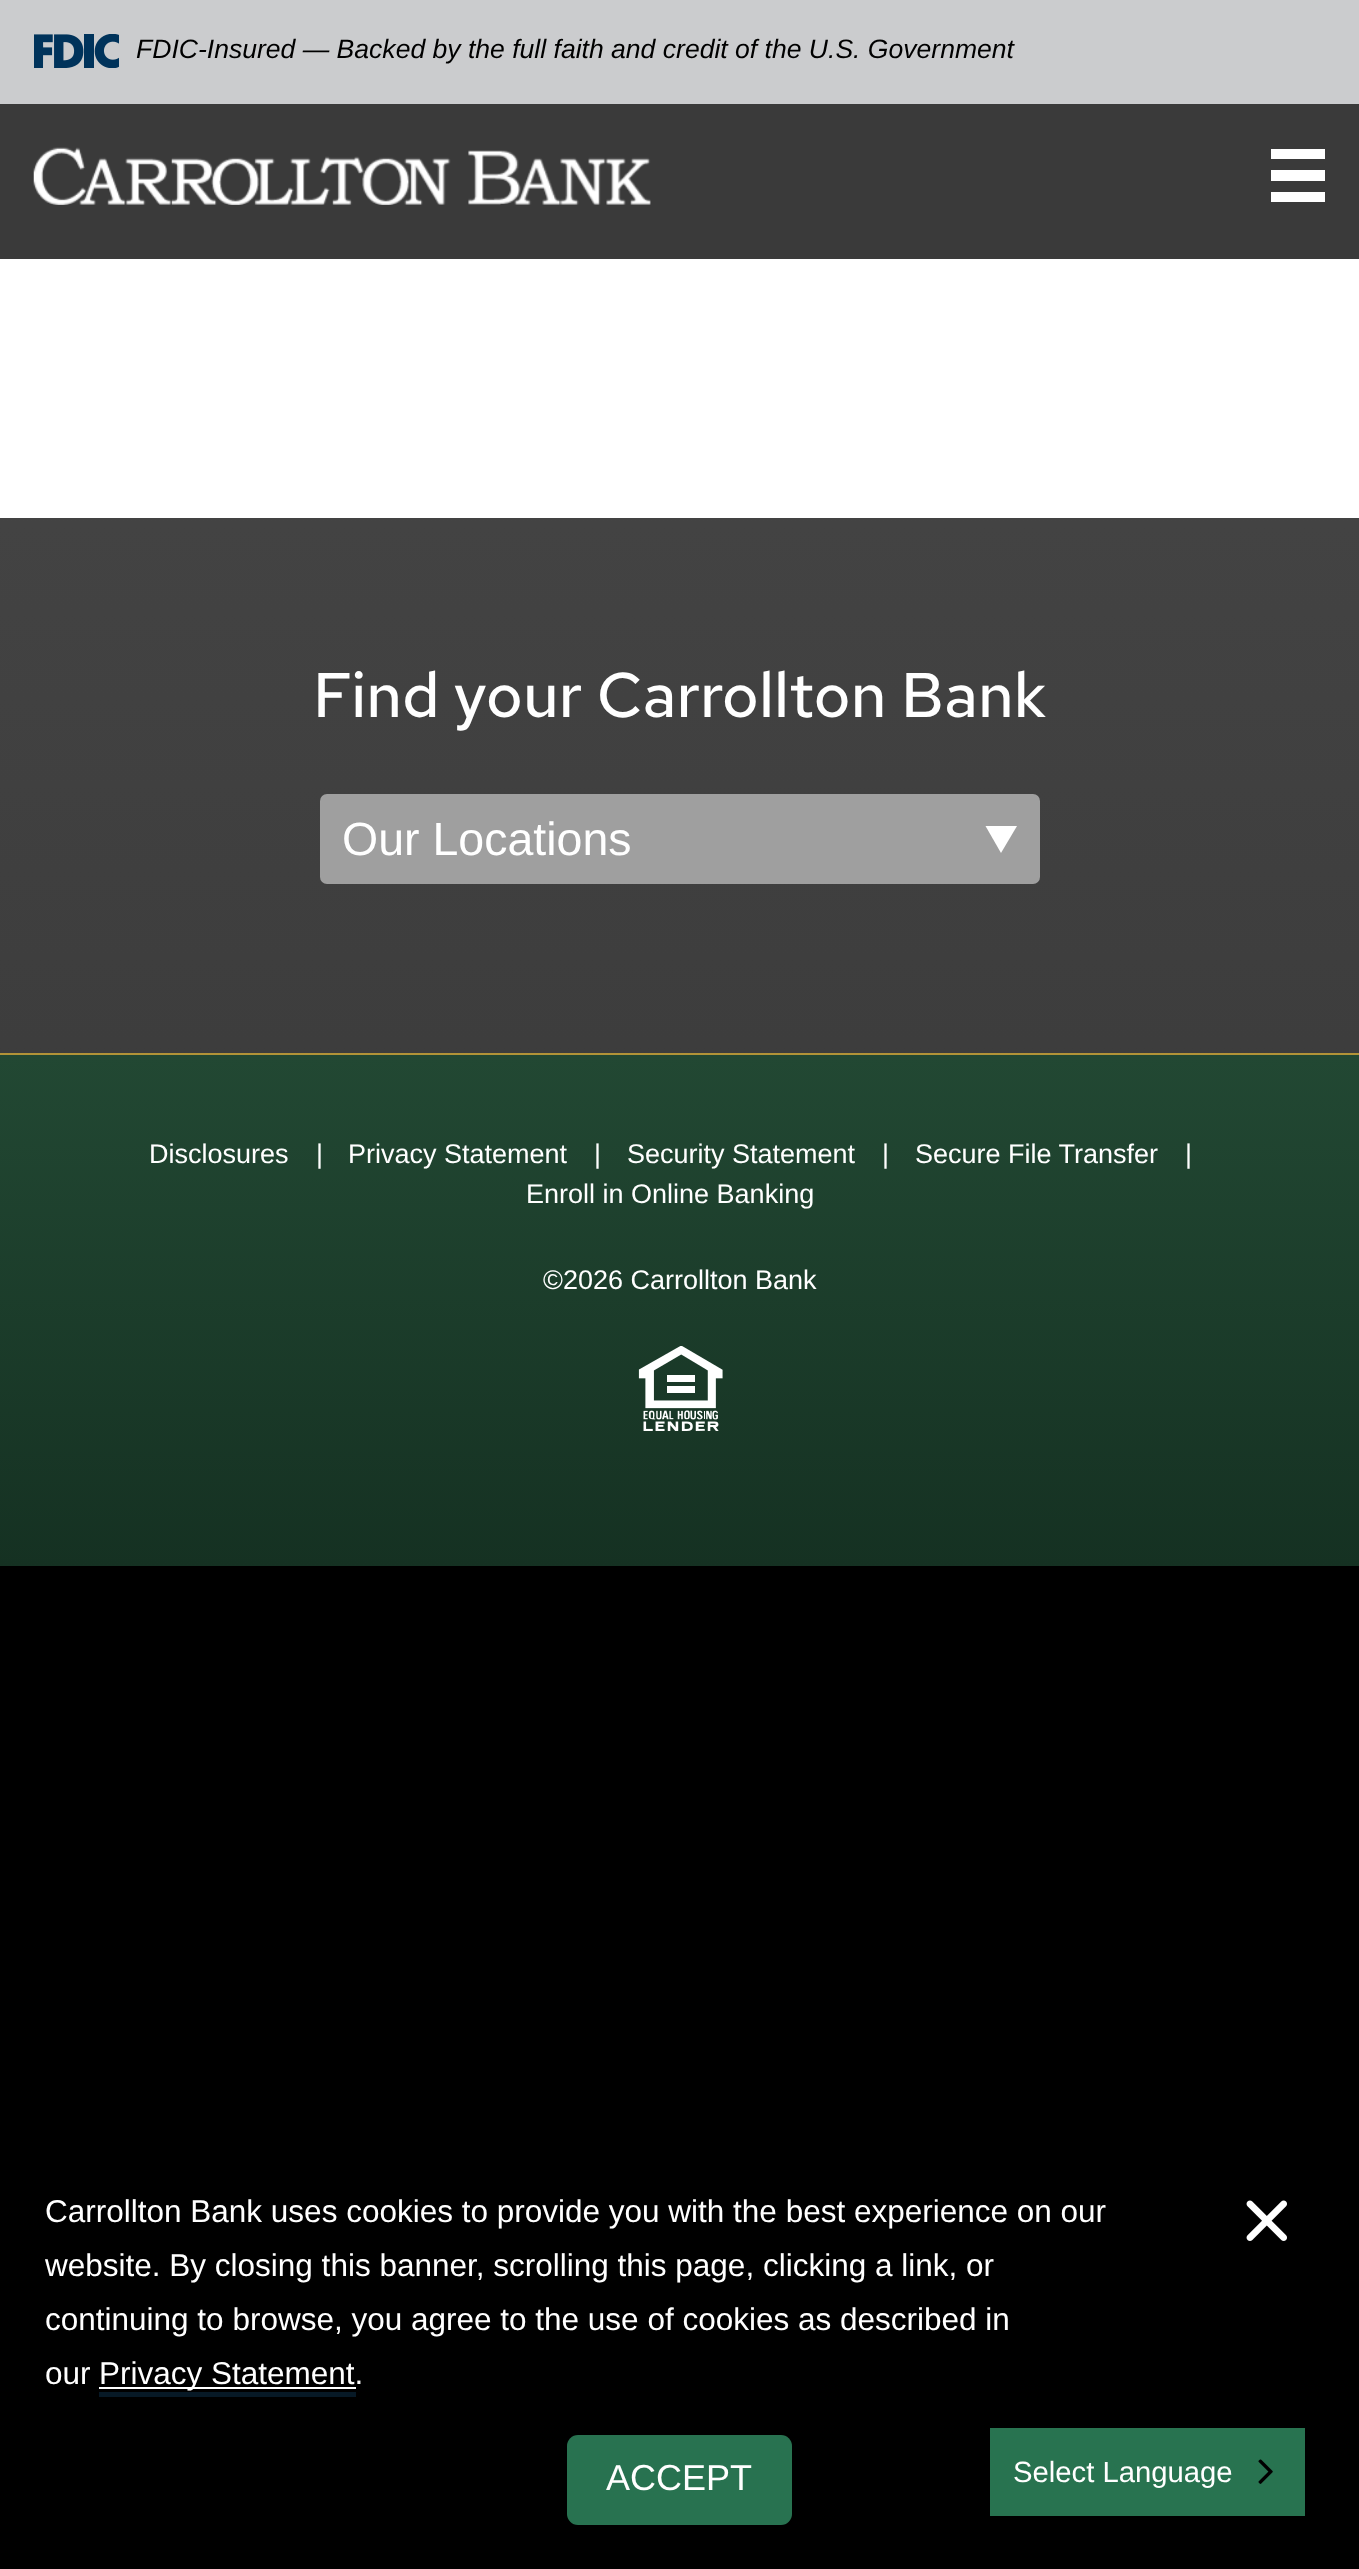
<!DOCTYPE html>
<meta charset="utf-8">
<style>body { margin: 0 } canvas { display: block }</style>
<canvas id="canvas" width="1359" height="2569"></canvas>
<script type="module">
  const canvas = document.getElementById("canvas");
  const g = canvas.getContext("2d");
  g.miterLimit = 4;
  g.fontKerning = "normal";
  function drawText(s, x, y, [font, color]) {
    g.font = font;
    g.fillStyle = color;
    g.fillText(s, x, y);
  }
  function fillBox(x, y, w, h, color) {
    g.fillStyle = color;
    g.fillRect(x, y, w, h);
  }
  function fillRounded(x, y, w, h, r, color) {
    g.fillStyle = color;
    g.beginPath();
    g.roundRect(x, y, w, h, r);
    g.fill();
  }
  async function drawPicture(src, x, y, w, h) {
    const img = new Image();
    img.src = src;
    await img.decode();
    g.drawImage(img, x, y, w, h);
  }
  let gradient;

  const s1 = ["italic 26.55px Liberation Sans", "#000000"];
  const s2 = ["500 63px Red Hat Text", "#FFFFFF"];
  const s3 = ["46.5px Liberation Sans", "#FFFFFF"];
  const s4 = ["27px Liberation Sans", "#FFFFFF"];
  const s5 = ["31.5px Liberation Sans", "#FFFFFF"];
  const s6 = ["36px Liberation Sans", "#FFFFFF"];
  const s7 = ["29.25px Liberation Sans", "#FFFFFF"];

  fillBox(0, 0, 1359, 2569, "#000000");
  fillBox(0, 104, 1359, 155, "#3A3A3A");
  fillBox(0, 0, 1359, 104, "#CBCCCE");
  await drawPicture("pic1.png", 34, 34, 85, 34);
  drawText("FDIC-Insured — Backed by the full faith and credit of the U.S. Government", 136, 58, s1);
  await drawPicture("pic2.png", 33, 147, 618, 58);
  fillBox(1271, 149, 54, 10, "#FFFFFF");
  fillBox(1271, 170, 54, 11, "#FFFFFF");
  fillBox(1271, 192, 54, 10, "#FFFFFF");
  fillBox(0, 259, 1359, 259, "#FFFFFF");
  gradient = g.createLinearGradient(680, 1910, 680, -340);
  gradient.addColorStop(0, "#333333");
  gradient.addColorStop(1, "#4D4D4D");
  g.fillStyle = gradient;
  g.fillRect(0, 518, 1359, 535);
  drawText("Find your Carrollton Bank", 313, 717, s2);
  fillRounded(320, 794, 720, 90, 7, "#9F9F9F");
  g.fillStyle = "#FFFFFF";
  g.beginPath();
  g.moveTo(1001, 853);
  g.lineTo(985.5, 826);
  g.lineTo(1017, 826);
  g.closePath();
  g.fill();
  drawText("Our Locations", 342, 855, s3);
  gradient = g.createLinearGradient(680, 1566, 680, 1055);
  gradient.addColorStop(0, "#153122");
  gradient.addColorStop(1, "#224833");
  g.fillStyle = gradient;
  g.fillRect(0, 1055, 1359, 511);
  fillBox(0, 1053, 1359, 2, "#B29338");
  drawText("Disclosures", 149, 1163, s4);
  drawText("|", 316, 1163, s4);
  drawText("Privacy Statement", 348, 1163, s4);
  drawText("|", 594, 1163, s4);
  drawText("Security Statement", 627, 1163, s4);
  drawText("|", 882, 1163, s4);
  drawText("Secure File Transfer", 915, 1163, s4);
  drawText("|", 1185, 1163, s4);
  drawText("Enroll in Online Banking", 526, 1203, s4);
  drawText("©2026 Carrollton Bank", 543, 1289, s4);
  await drawPicture("pic3.png", 638, 1346, 85, 85);
  drawText("Carrollton Bank uses cookies to provide you with the best experience on our", 45, 2222, s5);
  drawText("website. By closing this banner, scrolling this page, clicking a link, or", 45, 2276, s5);
  drawText("continuing to browse, you agree to the use of cookies as described in", 45, 2330, s5);
  drawText("our", 45, 2384, s5);
  fillBox(99, 2387, 257, 2, "#FFFFFF");
  drawText("Privacy Statement.", 99, 2384, s5);
  fillBox(99, 2392, 257, 5, "#071926");
  await drawPicture("pic4.png", 1246, 2200, 41, 41);
  fillRounded(567, 2435, 225, 90, 11, "#287250");
  drawText("ACCEPT", 606, 2490, s6);
  fillBox(990, 2428, 315, 88, "#287350");
  drawText("Select Language", 1013, 2482, s7);
  await drawPicture("pic5.png", 1258, 2459, 15, 25);
</script>
